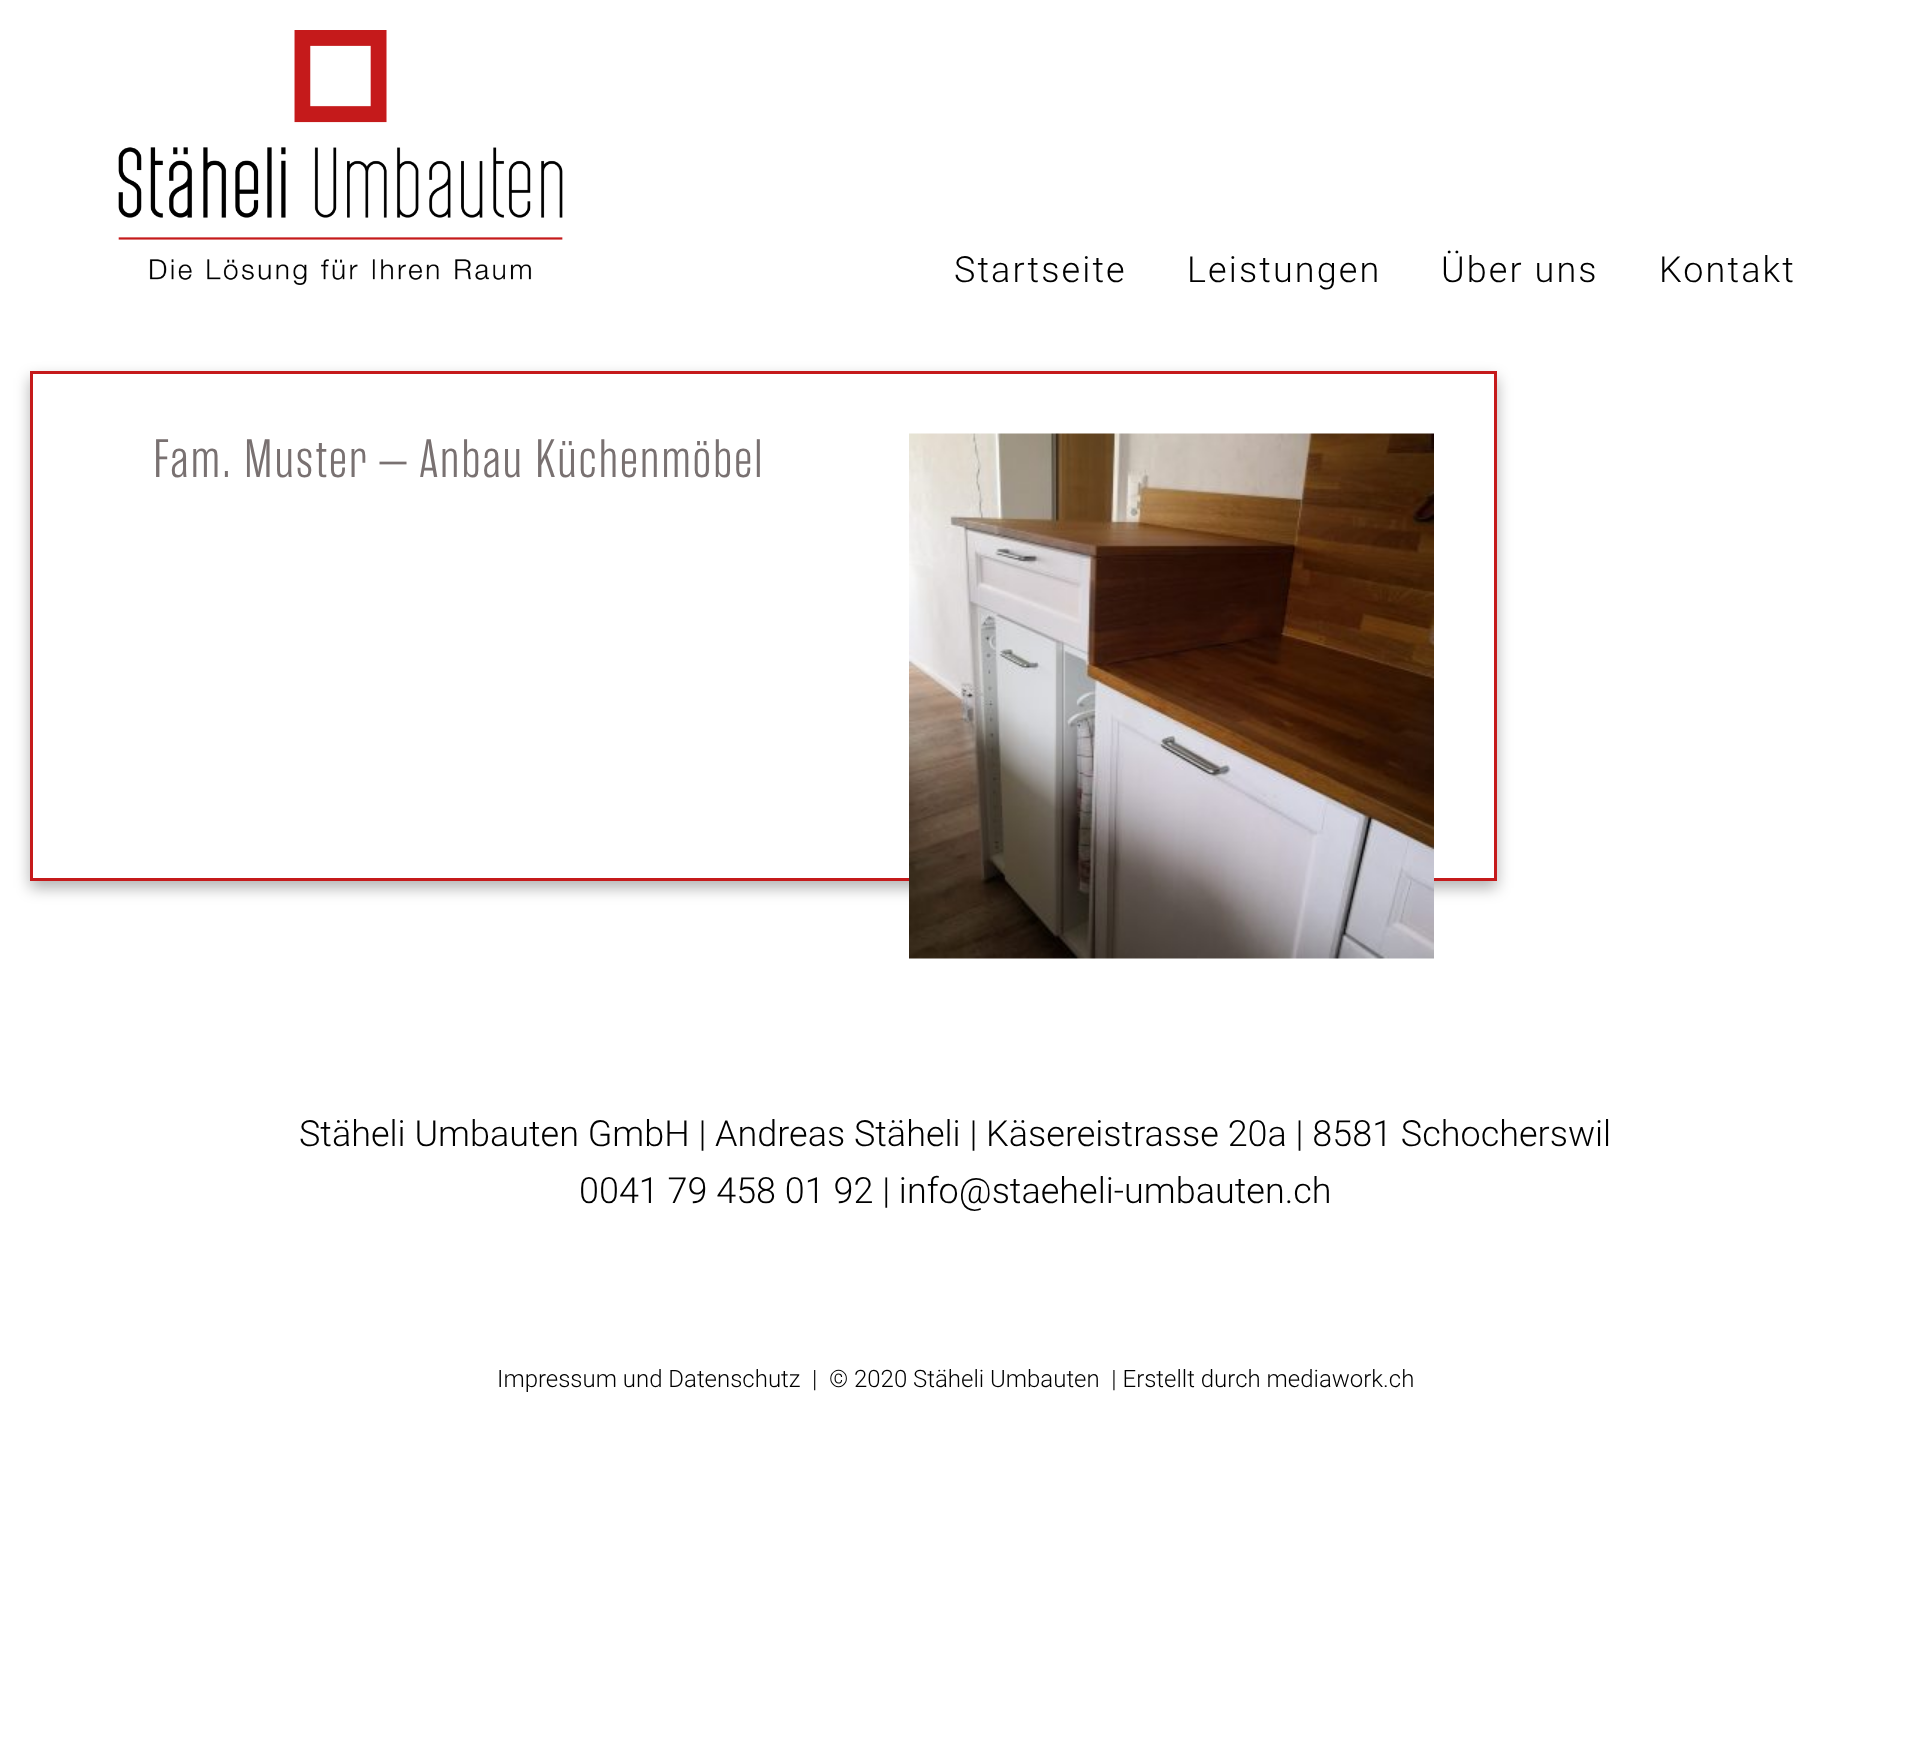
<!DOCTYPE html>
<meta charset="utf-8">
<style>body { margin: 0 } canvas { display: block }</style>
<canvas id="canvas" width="1910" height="1759"></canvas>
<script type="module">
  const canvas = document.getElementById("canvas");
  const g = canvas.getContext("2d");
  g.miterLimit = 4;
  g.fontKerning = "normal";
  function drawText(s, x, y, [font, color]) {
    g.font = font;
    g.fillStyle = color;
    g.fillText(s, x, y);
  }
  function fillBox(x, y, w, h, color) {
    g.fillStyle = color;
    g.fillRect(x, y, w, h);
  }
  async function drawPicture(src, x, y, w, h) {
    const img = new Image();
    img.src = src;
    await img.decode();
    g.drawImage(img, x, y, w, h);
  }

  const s1 = ["300 36px Roboto", "#000000"];
  const s2 = ["300 54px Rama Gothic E", "#797171"];
  const s3 = ["300 24px Roboto", "#000000"];

  fillBox(0, 0, 1910, 1759, "#FFFFFF");
  await drawPicture("pic1.png", 118, 30, 445, 255);
  g.letterSpacing = "2.1px";
  drawText("Startseite", 954, 282, s1);
  drawText("Leistungen", 1187, 282, s1);
  drawText("Über uns", 1441, 282, s1);
  drawText("Kontakt", 1659, 282, s1);
  g.fillStyle = "rgba(0, 0, 0, 0.3)";
  g.filter = "blur(7.5px)";
  g.beginPath();
  g.rect(30, 378, 1467, 510);
  g.fill();
  g.filter = "none";
  g.fillStyle = "#FFFFFF";
  g.beginPath();
  g.rect(31.5, 372.5, 1464, 507);
  g.fill();
  g.strokeStyle = "#C51A1B";
  g.lineWidth = 3;
  g.stroke();
  g.letterSpacing = "1.8px";
  drawText("Fam. Muster – Anbau Küchenmöbel", 153, 477, s2);
  await drawPicture("pic2.png", 909, 433, 525, 526);
  g.letterSpacing = "0px";
  drawText("Stäheli Umbauten GmbH | Andreas Stäheli | Käsereistrasse 20a | 8581 Schocherswil", 299, 1146, s1);
  drawText("0041 79 458 01 92 | info@staeheli-umbauten.ch", 579, 1203, s1);
  drawText("Impressum und Datenschutz", 497, 1387, s3);
  drawText("|", 812, 1387, s3);
  drawText("© 2020 Stäheli Umbauten  | Erstellt durch mediawork.ch", 829, 1387, s3);
</script>
